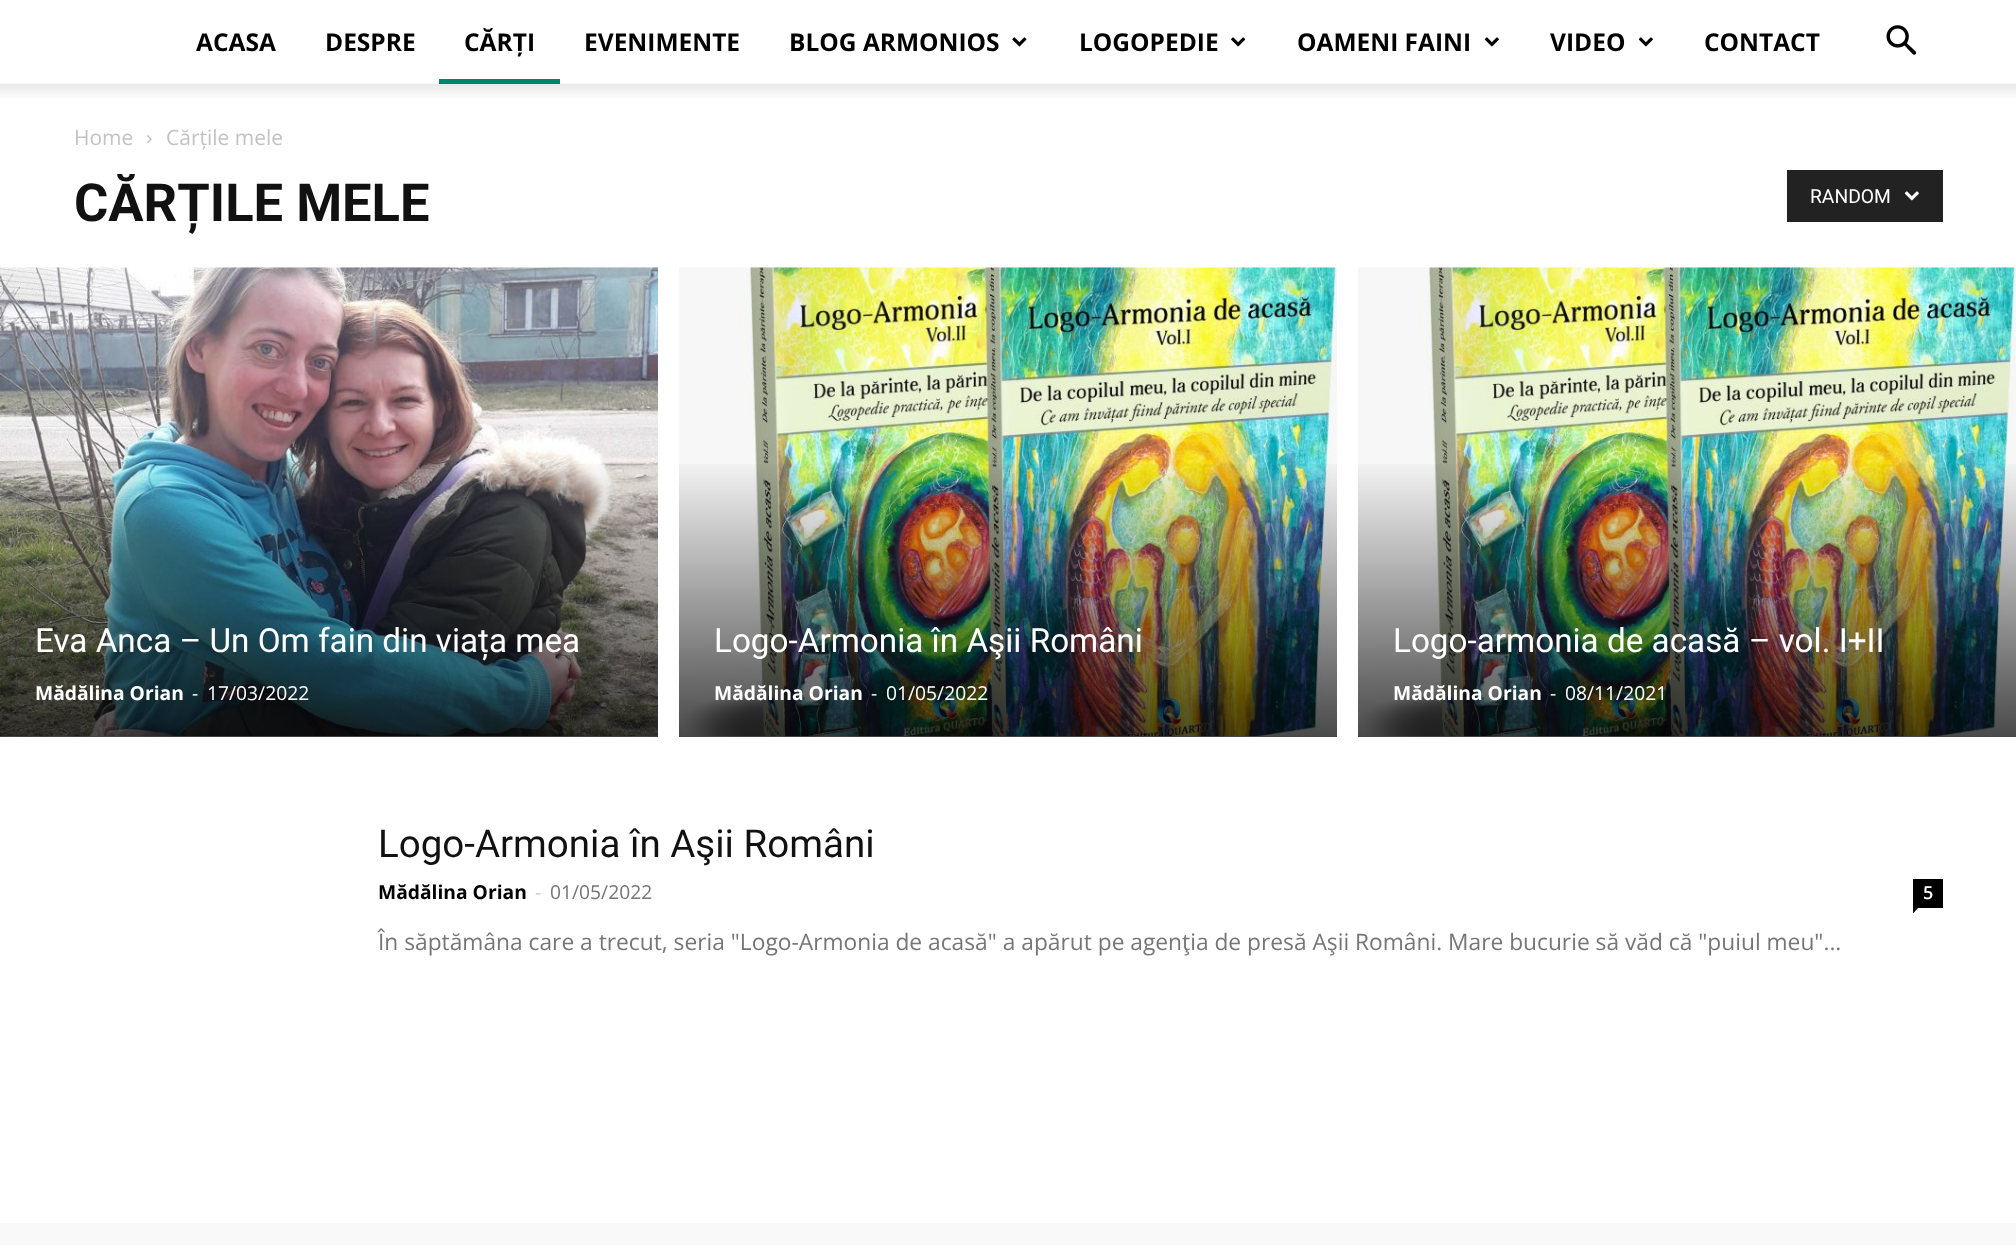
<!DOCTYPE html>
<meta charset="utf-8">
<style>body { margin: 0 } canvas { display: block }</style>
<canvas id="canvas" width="2016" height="1245"></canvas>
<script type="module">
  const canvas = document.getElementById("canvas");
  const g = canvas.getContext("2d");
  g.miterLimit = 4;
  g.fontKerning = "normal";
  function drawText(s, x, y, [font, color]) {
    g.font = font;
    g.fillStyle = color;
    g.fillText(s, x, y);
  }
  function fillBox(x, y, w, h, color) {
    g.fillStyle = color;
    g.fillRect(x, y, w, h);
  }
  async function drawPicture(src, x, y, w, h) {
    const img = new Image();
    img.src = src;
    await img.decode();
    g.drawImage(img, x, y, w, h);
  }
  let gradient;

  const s1 = ["bold 24.5px Open Sans", "#000000"];
  const s2 = ["21px Open Sans", "#C3C3C3"];
  const s3 = ["bold 52.5px Roboto", "#111111"];
  const s4 = ["19.25px Roboto", "#FFFFFF"];
  const s5 = ["33.25px Roboto", "#FFFFFF"];
  const s6 = ["bold 19.25px Open Sans", "#FFFFFF"];
  const s7 = ["19.25px Open Sans", "#FFFFFF"];
  const s8 = ["38.5px Roboto", "#111111"];
  const s9 = ["bold 19.25px Open Sans", "#000000"];
  const s10 = ["19.25px Open Sans", "#CCCCCC"];
  const s11 = ["19.25px Open Sans", "#767676"];
  const s12 = ["600 18px Open Sans", "#FFFFFF"];
  const s13 = ["22.75px Open Sans", "#767676"];

  fillBox(0, 0, 2016, 1245, "#FFFFFF");
  drawText("ACASA", 196, 51, s1);
  drawText("DESPRE", 325, 51, s1);
  drawText("CĂRȚI", 464, 51, s1);
  await drawPicture("pic5.png", 0, 83, 2016, 15);
  fillBox(439, 79, 121, 5, "#00846B");
  drawText("EVENIMENTE", 584, 51, s1);
  drawText("BLOG ARMONIOS", 789, 51, s1);
  await drawPicture("pic1.png", 1012, 37, 15, 10);
  drawText("LOGOPEDIE", 1079, 51, s1);
  await drawPicture("pic2.png", 1231, 37, 15, 10);
  drawText("OAMENI FAINI", 1297, 51, s1);
  await drawPicture("pic3.png", 1484, 37, 15, 10);
  drawText("VIDEO", 1550, 51, s1);
  await drawPicture("pic3.png", 1638, 37, 15, 10);
  drawText("CONTACT", 1704, 51, s1);
  await drawPicture("pic4.png", 1886, 25, 31, 30);
  drawText("Home", 74, 145, s2);
  await drawPicture("pic6.png", 147, 135, 5, 9);
  drawText("Cărțile mele", 166, 145, s2);
  drawText("CĂRȚILE MELE", 74, 221, s3);
  fillBox(1787, 170, 156, 52, "#222222");
  drawText("RANDOM", 1810, 203, s4);
  await drawPicture("pic7.png", 1904, 191, 15, 10);
  fillBox(0, 736, 658, 1, "#E5E5E5");
  await drawPicture("pic8.png", 0, 267, 658, 470);
  gradient = g.createLinearGradient(329, 268, 329, 737);
  gradient.addColorStop(0.4, "rgba(0, 0, 0, 0)");
  gradient.addColorStop(1, "rgba(0, 0, 0, 0.7)");
  g.fillStyle = gradient;
  g.fillRect(0, 464, 658, 273);
  drawText("Eva Anca – Un Om fain din viața mea", 35, 652, s5);
  drawText("Mădălina Orian", 35, 700, s6);
  drawText("-", 192, 700, s7);
  drawText("17/03/2022", 207, 700, s7);
  fillBox(679, 736, 658, 1, "#E5E5E5");
  await drawPicture("pic9.png", 679, 267, 658, 470);
  gradient = g.createLinearGradient(1008, 268, 1008, 737);
  gradient.addColorStop(0.4, "rgba(0, 0, 0, 0)");
  gradient.addColorStop(1, "rgba(0, 0, 0, 0.7)");
  g.fillStyle = gradient;
  g.fillRect(679, 464, 658, 273);
  drawText("Logo-Armonia în Aşii Români", 714, 652, s5);
  drawText("Mădălina Orian", 714, 700, s6);
  drawText("-", 871, 700, s7);
  drawText("01/05/2022", 886, 700, s7);
  fillBox(1358, 736, 658, 1, "#E5E5E5");
  await drawPicture("pic9.png", 1358, 267, 658, 470);
  gradient = g.createLinearGradient(1687, 268, 1687, 737);
  gradient.addColorStop(0.4, "rgba(0, 0, 0, 0)");
  gradient.addColorStop(1, "rgba(0, 0, 0, 0.7)");
  g.fillStyle = gradient;
  g.fillRect(1358, 464, 658, 273);
  drawText("Logo-armonia de acasă – vol. I+II", 1393, 652, s5);
  drawText("Mădălina Orian", 1393, 700, s6);
  drawText("-", 1550, 700, s7);
  drawText("08/11/2021", 1565, 700, s7);
  drawText("Logo-Armonia în Aşii Români", 378, 857, s8);
  drawText("Mădălina Orian", 378, 899, s9);
  drawText("-", 535, 899, s10);
  drawText("01/05/2022", 550, 899, s11);
  fillBox(1913, 879, 30, 29, "#000000");
  drawText("5", 1923, 899, s12);
  g.fillStyle = "#000000";
  g.beginPath();
  g.moveTo(1913, 908);
  g.lineTo(1918, 908);
  g.lineTo(1913, 913.5);
  g.closePath();
  g.fill();
  drawText("În săptămâna care a trecut, seria \"Logo-Armonia de acasă\" a apărut pe agenţia de presă Aşii Români. Mare bucurie să văd că \"puiul meu\"...", 378, 950, s13);
  fillBox(0, 1223, 2016, 22, "#F9F9F9");
</script>
